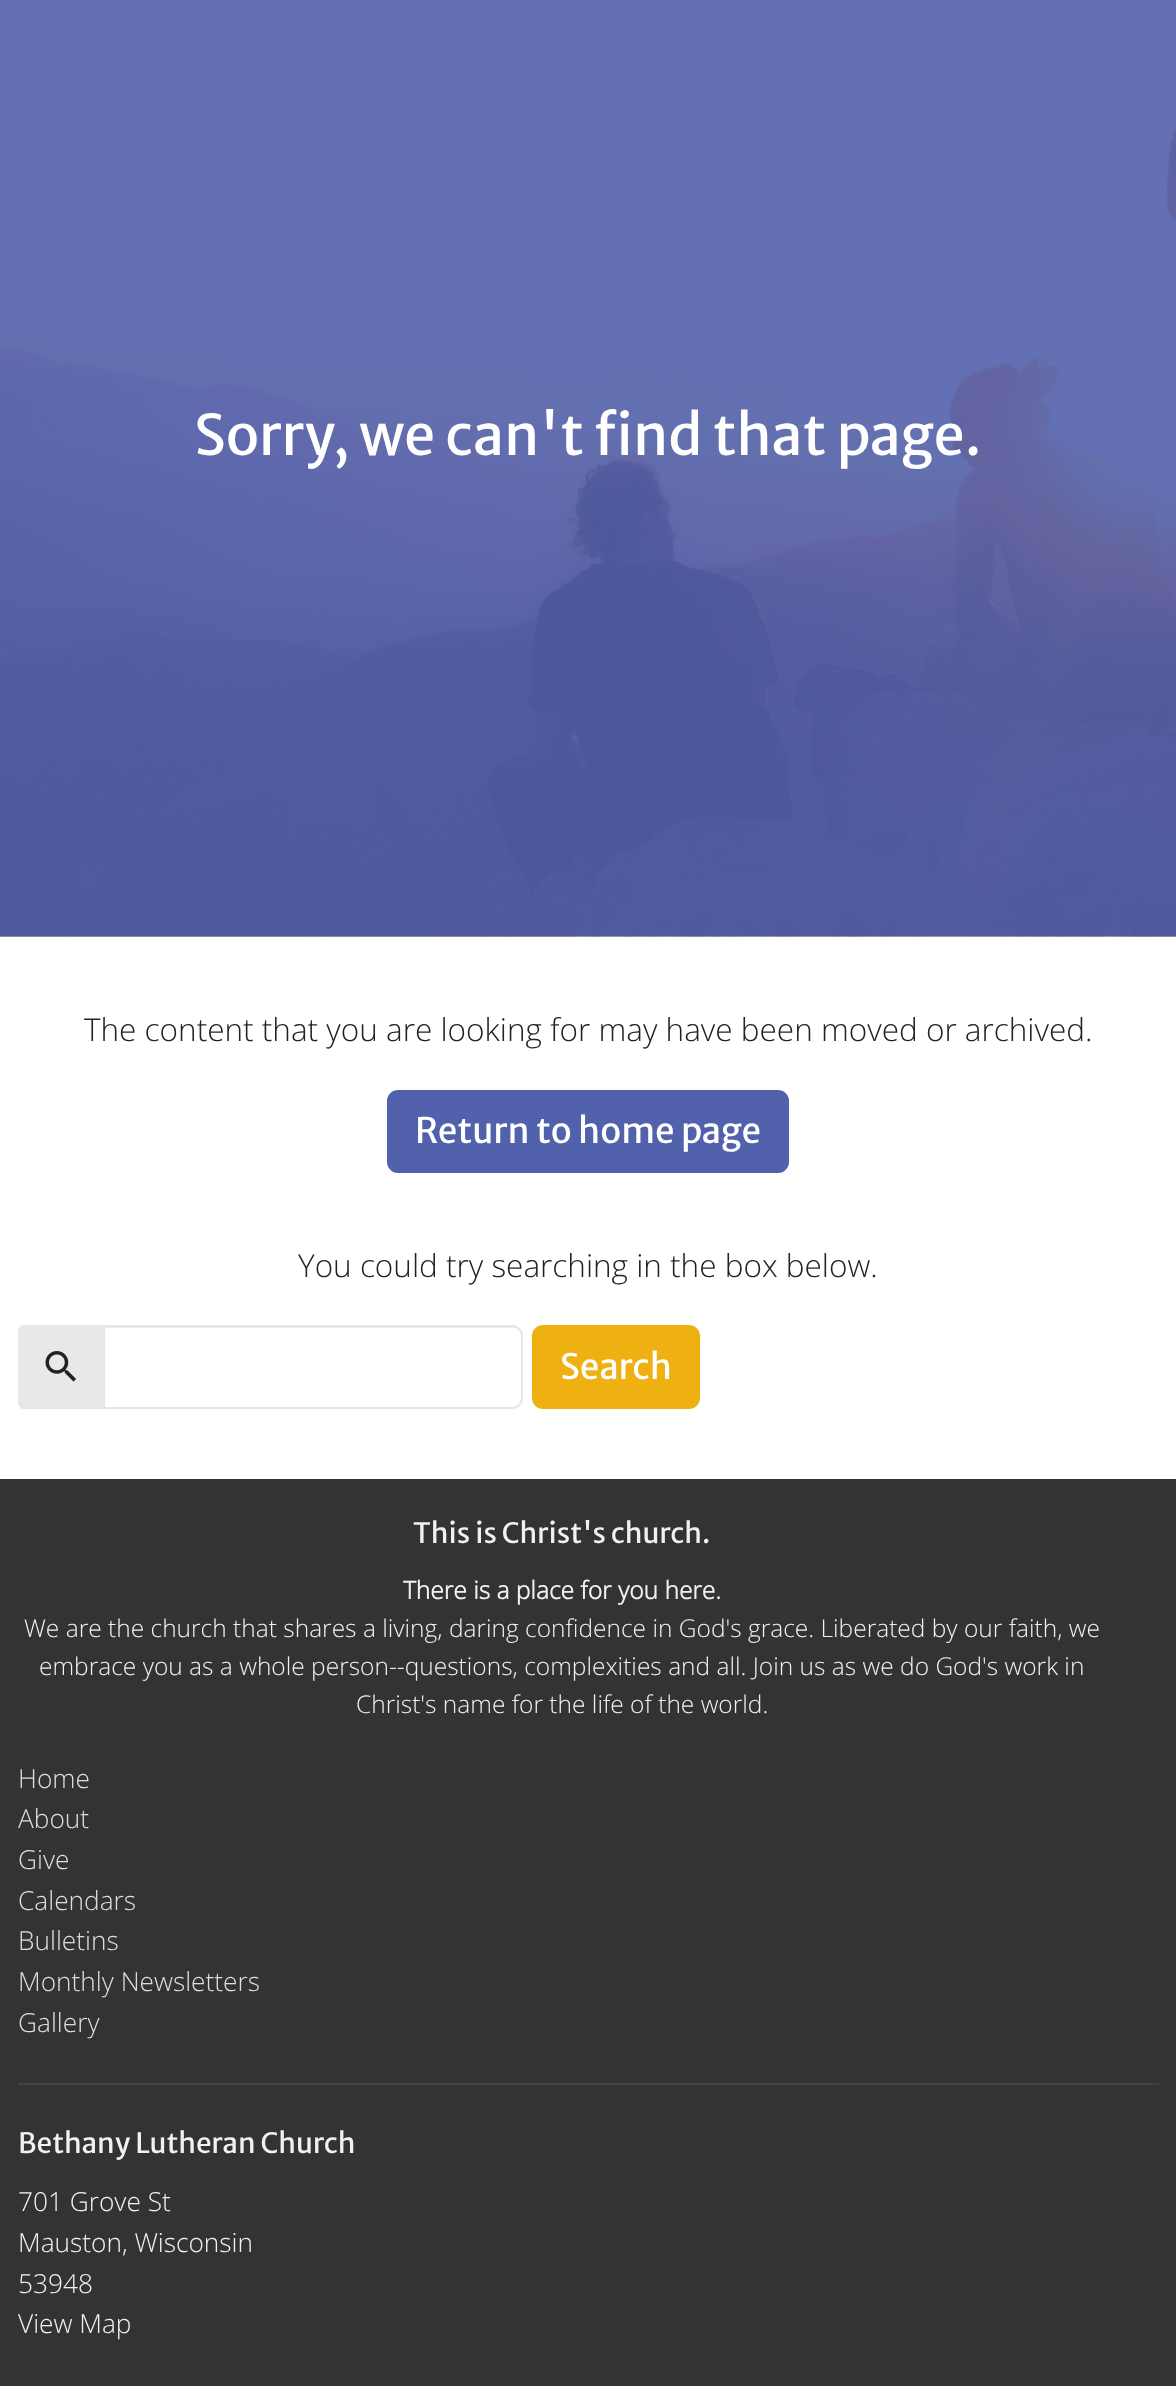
<!DOCTYPE html>
<meta charset="utf-8">
<style>body { margin: 0 } canvas { display: block }</style>
<canvas id="canvas" width="1176" height="2386"></canvas>
<script type="module">
  const canvas = document.getElementById("canvas");
  const g = canvas.getContext("2d");
  g.miterLimit = 4;
  g.fontKerning = "normal";
  function drawText(s, x, y, [font, color]) {
    g.font = font;
    g.fillStyle = color;
    g.fillText(s, x, y);
  }
  function fillBox(x, y, w, h, color) {
    g.fillStyle = color;
    g.fillRect(x, y, w, h);
  }
  function fillRounded(x, y, w, h, r, color) {
    g.fillStyle = color;
    g.beginPath();
    g.roundRect(x, y, w, h, r);
    g.fill();
  }
  async function drawPicture(src, x, y, w, h) {
    const img = new Image();
    img.src = src;
    await img.decode();
    g.drawImage(img, x, y, w, h);
  }

  const s1 = ["56px Merriweather Sans", "#FFFFFF"];
  const s2 = ["300 31.5px Open Sans", "#222222"];
  const s3 = ["35px Merriweather Sans", "#FFFFFF"];
  const s4 = ["28px Merriweather Sans", "#F1F1F1"];
  const s5 = ["bold 24.5px Open Sans", "#F1F1F1"];
  const s6 = ["300 24.5px Open Sans", "#F1F1F1"];
  const s7 = ["300 26.25px Open Sans", "#DEDEDE"];
  const s8 = ["300 26.25px Open Sans", "#F1F1F1"];

  fillBox(0, 0, 1176, 2386, "#FFFFFF");
  await drawPicture("pic1.png", 0, 0, 1176, 937);
  drawText("Sorry, we can't find that page.", 194, 455, s1);
  drawText("The content that you are looking for may have been moved or archived.", 84, 1041, s2);
  fillRounded(387, 1090, 402, 83, 11, "#5261AC");
  drawText("Return to home page", 415, 1143, s3);
  drawText("You could try searching in the box below.", 298, 1277, s2);
  g.fillStyle = "#E8E8E8";
  g.beginPath();
  g.roundRect(18, 1325, 85, 84, [7, 0, 0, 7]);
  g.fill();
  g.fillStyle = "#E6E6E6";
  g.beginPath();
  g.moveTo(24, 1325);
  g.lineTo(103, 1325);
  g.lineTo(103, 1409);
  g.lineTo(24, 1409);
  g.bezierCurveTo(21, 1409, 18, 1406, 18, 1402);
  g.lineTo(18, 1332);
  g.bezierCurveTo(18, 1328, 21, 1325, 24, 1325);
  g.closePath();
  g.moveTo(24, 1326);
  g.lineTo(103, 1326);
  g.lineTo(103, 1407);
  g.lineTo(24, 1407);
  g.bezierCurveTo(22, 1407, 19, 1405, 19, 1402);
  g.lineTo(19, 1332);
  g.bezierCurveTo(19, 1329, 22, 1326, 24, 1326);
  g.closePath();
  g.fill("evenodd");
  await drawPicture("pic2.png", 45, 1351, 31, 31);
  g.fillStyle = "#ECECEC";
  g.beginPath();
  g.moveTo(105, 1328);
  g.lineTo(513, 1328);
  g.bezierCurveTo(518, 1328, 522, 1332, 522, 1337);
  g.bezierCurveTo(522, 1332, 519, 1327, 513, 1327);
  g.lineTo(105, 1327);
  g.closePath();
  g.fill();
  g.beginPath();
  g.roundRect(104, 1326, 418, 82, [0, 10, 10, 0]);
  g.strokeStyle = "#E6E6E6";
  g.lineWidth = 2;
  g.stroke();
  fillRounded(532, 1325, 168, 84, 11, "#EEB111");
  drawText("Search", 560, 1379, s3);
  fillBox(0, 1479, 1176, 907, "#333333");
  drawText("This is Christ's church.", 413, 1543, s4);
  drawText("There is a place for you here.", 403, 1599, s5);
  drawText("We are the church that shares a living, daring confidence in God's grace. Liberated by our faith, we", 24, 1637, s6);
  drawText("embrace you as a whole person--questions, complexities and all. Join us as we do God's work in", 39, 1675, s6);
  drawText("Christ's name for the life of the world.", 356, 1713, s6);
  drawText("Home", 18, 1788, s7);
  drawText("About", 18, 1828, s7);
  drawText("Give", 18, 1869, s7);
  drawText("Calendars", 18, 1910, s7);
  drawText("Bulletins", 18, 1950, s7);
  drawText("Monthly Newsletters", 18, 1991, s7);
  drawText("Gallery", 18, 2032, s7);
  fillBox(18, 2083, 1141, 2, "#424242");
  drawText("Bethany Lutheran Church", 18, 2153, s4);
  drawText("701 Grove St", 18, 2211, s8);
  drawText("Mauston, Wisconsin", 18, 2252, s8);
  drawText("53948", 18, 2293, s8);
  drawText("View Map", 18, 2333, s8);
</script>
